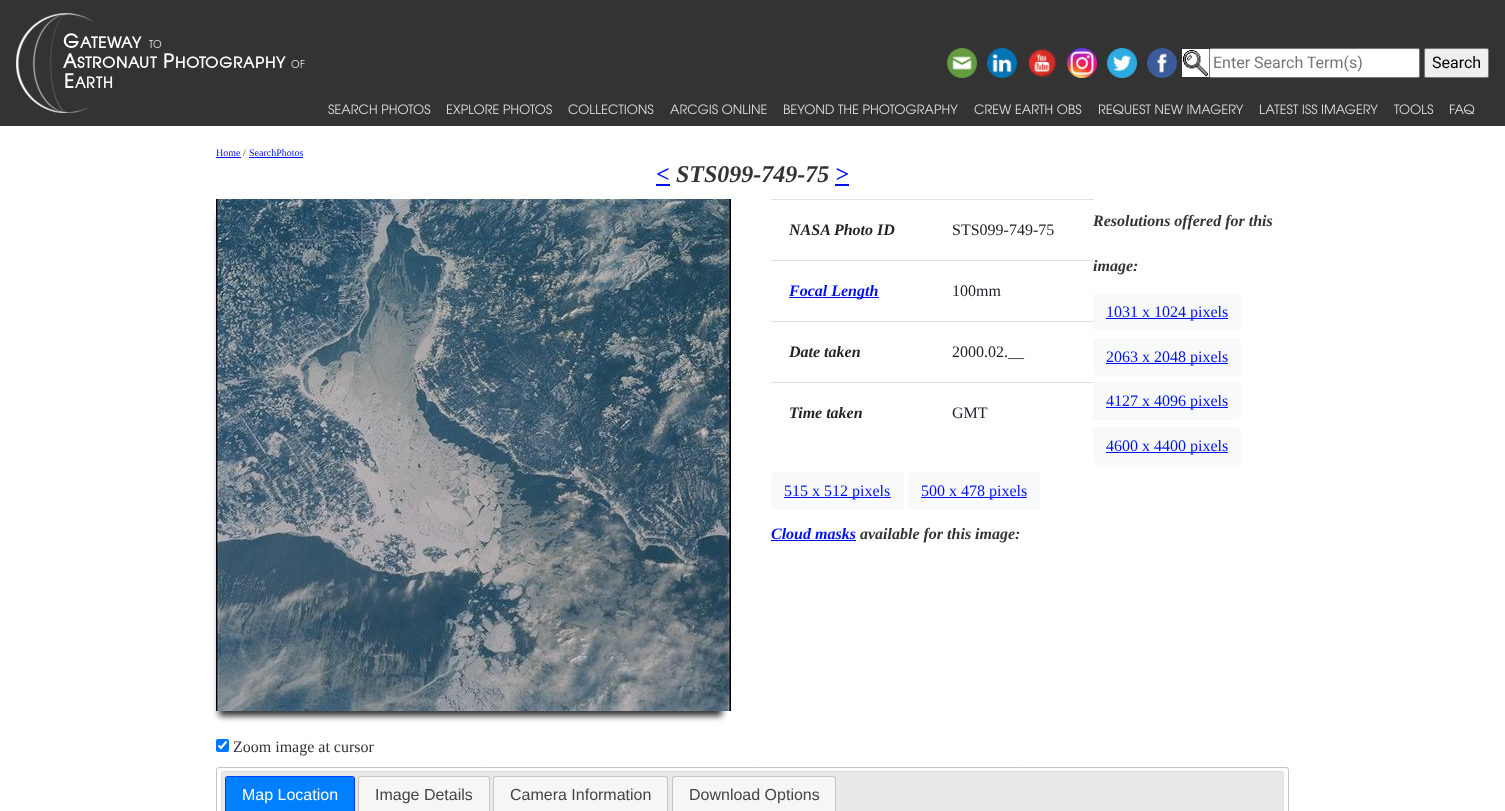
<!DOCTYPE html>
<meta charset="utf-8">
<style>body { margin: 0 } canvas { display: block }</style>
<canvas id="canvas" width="1505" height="811"></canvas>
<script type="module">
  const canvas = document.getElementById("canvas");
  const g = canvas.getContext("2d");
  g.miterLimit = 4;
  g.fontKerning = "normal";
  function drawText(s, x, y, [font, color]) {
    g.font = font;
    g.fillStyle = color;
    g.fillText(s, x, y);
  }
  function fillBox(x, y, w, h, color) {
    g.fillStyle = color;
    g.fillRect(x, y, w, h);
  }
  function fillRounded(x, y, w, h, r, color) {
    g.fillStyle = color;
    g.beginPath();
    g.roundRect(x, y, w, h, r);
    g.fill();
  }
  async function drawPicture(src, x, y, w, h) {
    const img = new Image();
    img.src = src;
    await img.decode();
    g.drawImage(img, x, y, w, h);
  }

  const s1 = ["16px Roboto", "#757575"];
  const s2 = ["16px Roboto", "#000000"];
  const s3 = ["10px Liberation Serif", "#0011EE"];
  const s4 = ["10px Liberation Serif", "#333333"];
  const s5 = ["italic bold 24px Liberation Serif", "#0011EE"];
  const s6 = ["italic bold 24px Liberation Serif", "#333333"];
  const s7 = ["italic bold 16px Liberation Serif", "#333333"];
  const s8 = ["16px Liberation Serif", "#0011EE"];
  const s9 = ["italic bold 16px Liberation Serif", "#0011EE"];
  const s10 = ["italic bold 16px Liberation Serif", "#212529"];
  const s11 = ["16px Liberation Serif", "#212529"];
  const s12 = ["16px Liberation Serif", "#333333"];
  const s13 = ["16px Liberation Sans", "#FFFFFF"];
  const s14 = ["16px Liberation Sans", "#454545"];

  fillBox(0, 0, 1505, 811, "#FFFFFF");
  fillBox(0, 0, 1505, 126, "#333333");
  await drawPicture("pic1.png", 16, 13, 289, 100);
  await drawPicture("pic2.png", 947, 48, 30, 30);
  await drawPicture("pic3.png", 987, 48, 30, 30);
  await drawPicture("pic4.png", 1027, 48, 30, 30);
  await drawPicture("pic5.png", 1067, 48, 30, 30);
  await drawPicture("pic6.png", 1107, 48, 30, 30);
  await drawPicture("pic7.png", 1147, 48, 30, 30);
  await drawPicture("pic8.png", 1182, 49, 27, 28);
  g.fillStyle = "#FFFFFF";
  g.beginPath();
  g.roundRect(1209.5, 48.5, 210, 29, 1.5);
  g.fill();
  g.strokeStyle = "#767676";
  g.stroke();
  drawText("Enter Search Term(s)", 1213, 68, s1);
  g.fillStyle = "#EFEFEF";
  g.beginPath();
  g.roundRect(1424.5, 48.5, 64, 29, 1.5);
  g.fill();
  g.stroke();
  drawText("Search", 1432, 68, s2);
  await drawPicture("pic9.png", 328, 104, 103, 11);
  await drawPicture("pic10.png", 446, 104, 106, 11);
  await drawPicture("pic11.png", 568, 104, 86, 11);
  await drawPicture("pic12.png", 670, 104, 97, 11);
  await drawPicture("pic13.png", 783, 104, 175, 11);
  await drawPicture("pic14.png", 974, 104, 108, 11);
  await drawPicture("pic15.png", 1098, 104, 146, 11);
  await drawPicture("pic16.png", 1259, 104, 119, 11);
  await drawPicture("pic17.png", 1394, 104, 40, 11);
  await drawPicture("pic18.png", 1449, 104, 26, 11);
  drawText("Home", 216, 156, s3);
  fillBox(216, 157, 25, 1, "#0011EE");
  drawText("/", 243, 156, s4);
  drawText("SearchPhotos", 249, 156, s3);
  fillBox(249, 157, 54, 1, "#0011EE");
  drawText("<", 656, 182, s5);
  fillBox(656, 184, 14, 2, "#0011EE");
  drawText("STS099-749-75", 676, 182, s6);
  drawText(">", 835, 182, s5);
  fillBox(835, 184, 14, 2, "#0011EE");
  drawText("Resolutions offered for this", 1093, 226, s7);
  fillBox(771, 260, 323, 1, "#DEE2E6");
  drawText("image:", 1093, 271, s7);
  fillBox(771, 321, 323, 1, "#DEE2E6");
  fillRounded(1093, 293, 148, 38, 4, "#F8F9FA");
  fillBox(1106, 318, 122, 1, "#0011EE");
  drawText("1031 x 1024 pixels", 1106, 317, s8);
  fillRounded(1093, 338, 148, 38, 4, "#F8F9FA");
  fillBox(1106, 363, 122, 1, "#0011EE");
  drawText("2063 x 2048 pixels", 1106, 362, s8);
  fillBox(771, 382, 323, 1, "#DEE2E6");
  fillRounded(1093, 382, 148, 38, 4, "#F8F9FA");
  fillBox(1106, 407, 122, 1, "#0011EE");
  drawText("4127 x 4096 pixels", 1106, 406, s8);
  fillRounded(1093, 427, 148, 38, 4, "#F8F9FA");
  fillBox(1106, 452, 122, 1, "#0011EE");
  drawText("4600 x 4400 pixels", 1106, 451, s8);
  fillRounded(771, 472, 133, 38, 4, "#F8F9FA");
  fillBox(784, 497, 107, 1, "#0011EE");
  drawText("515 x 512 pixels", 784, 496, s8);
  fillRounded(908, 472, 132, 38, 4, "#F8F9FA");
  fillBox(921, 497, 106, 1, "#0011EE");
  drawText("500 x 478 pixels", 921, 496, s8);
  drawText("Cloud masks", 771, 539, s9);
  fillBox(771, 540, 85, 1, "#0011EE");
  drawText("available for this image:", 860, 539, s7);
  drawText("NASA Photo ID", 789, 235, s10);
  fillBox(771, 199, 323, 1, "#DEE2E6");
  drawText("STS099-749-75", 952, 235, s11);
  fillBox(789, 297, 90, 1, "#0011EE");
  drawText("Focal Length", 789, 296, s9);
  drawText("100mm", 952, 296, s11);
  drawText("Date taken", 789, 357, s10);
  drawText("2000.02.__", 952, 357, s11);
  drawText("Time taken", 789, 418, s10);
  drawText("GMT", 952, 418, s11);
  g.fillStyle = "#333333";
  g.filter = "blur(3px)";
  g.beginPath();
  g.rect(219, 216, 503, 500);
  g.fill();
  g.filter = "none";
  await drawPicture("pic19.png", 216, 199, 515, 512);
  fillRounded(216, 739, 13, 13, 2, "#0075FF");
  g.beginPath();
  g.moveTo(218.5, 745.5);
  g.lineTo(221, 748);
  g.lineTo(226.5, 741.5);
  g.strokeStyle = "#FFFFFF";
  g.lineWidth = 2.1;
  g.stroke();
  drawText("Zoom image at cursor", 233, 752, s12);
  g.beginPath();
  g.roundRect(216.5, 767.5, 1072, 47, 2.5);
  g.strokeStyle = "#C5C5C5";
  g.lineWidth = 1;
  g.stroke();
  g.fillStyle = "#E9E9E9";
  g.beginPath();
  g.roundRect(221.5, 771.5, 1062, 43, 2.5);
  g.fill();
  g.strokeStyle = "#DDDDDD";
  g.stroke();
  g.fillStyle = "#007FFF";
  g.beginPath();
  g.moveTo(228, 777);
  g.lineTo(352, 777);
  g.bezierCurveTo(353, 777, 354, 778, 354, 779);
  g.lineTo(354, 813);
  g.lineTo(226, 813);
  g.lineTo(226, 779);
  g.bezierCurveTo(226, 778, 227, 777, 228, 777);
  g.closePath();
  g.fill();
  g.fillStyle = "#003EFF";
  g.beginPath();
  g.moveTo(228, 776);
  g.lineTo(352, 776);
  g.bezierCurveTo(354, 776, 355, 777, 355, 779);
  g.lineTo(355, 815);
  g.lineTo(225, 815);
  g.lineTo(225, 779);
  g.bezierCurveTo(225, 777, 226, 776, 228, 776);
  g.closePath();
  g.moveTo(228, 777);
  g.lineTo(352, 777);
  g.bezierCurveTo(353, 777, 354, 778, 354, 779);
  g.lineTo(354, 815);
  g.lineTo(226, 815);
  g.lineTo(226, 779);
  g.bezierCurveTo(226, 778, 227, 777, 228, 777);
  g.closePath();
  g.fill("evenodd");
  drawText("Map Location", 242, 800, s13);
  g.fillStyle = "#F6F6F6";
  g.beginPath();
  g.moveTo(361, 777);
  g.lineTo(487, 777);
  g.bezierCurveTo(488, 777, 489, 778, 489, 779);
  g.lineTo(489, 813);
  g.lineTo(359, 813);
  g.lineTo(359, 779);
  g.bezierCurveTo(359, 778, 360, 777, 361, 777);
  g.closePath();
  g.fill();
  g.fillStyle = "#C5C5C5";
  g.beginPath();
  g.moveTo(361, 776);
  g.lineTo(487, 776);
  g.bezierCurveTo(489, 776, 490, 777, 490, 779);
  g.lineTo(490, 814);
  g.lineTo(358, 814);
  g.lineTo(358, 779);
  g.bezierCurveTo(358, 777, 359, 776, 361, 776);
  g.closePath();
  g.moveTo(361, 777);
  g.lineTo(487, 777);
  g.bezierCurveTo(488, 777, 489, 778, 489, 779);
  g.lineTo(489, 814);
  g.lineTo(359, 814);
  g.lineTo(359, 779);
  g.bezierCurveTo(359, 778, 360, 777, 361, 777);
  g.closePath();
  g.fill("evenodd");
  drawText("Image Details", 375, 800, s14);
  g.fillStyle = "#F6F6F6";
  g.beginPath();
  g.moveTo(496, 777);
  g.lineTo(665, 777);
  g.bezierCurveTo(666, 777, 667, 778, 667, 779);
  g.lineTo(667, 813);
  g.lineTo(494, 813);
  g.lineTo(494, 779);
  g.bezierCurveTo(494, 778, 495, 777, 496, 777);
  g.closePath();
  g.fill();
  g.fillStyle = "#C5C5C5";
  g.beginPath();
  g.moveTo(496, 776);
  g.lineTo(665, 776);
  g.bezierCurveTo(667, 776, 668, 777, 668, 779);
  g.lineTo(668, 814);
  g.lineTo(493, 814);
  g.lineTo(493, 779);
  g.bezierCurveTo(493, 777, 494, 776, 496, 776);
  g.closePath();
  g.moveTo(496, 777);
  g.lineTo(665, 777);
  g.bezierCurveTo(666, 777, 667, 778, 667, 779);
  g.lineTo(667, 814);
  g.lineTo(494, 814);
  g.lineTo(494, 779);
  g.bezierCurveTo(494, 778, 495, 777, 496, 777);
  g.closePath();
  g.fill("evenodd");
  drawText("Camera Information", 510, 800, s14);
  g.fillStyle = "#F6F6F6";
  g.beginPath();
  g.moveTo(675, 777);
  g.lineTo(833, 777);
  g.bezierCurveTo(834, 777, 835, 778, 835, 779);
  g.lineTo(835, 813);
  g.lineTo(673, 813);
  g.lineTo(673, 779);
  g.bezierCurveTo(673, 778, 674, 777, 675, 777);
  g.closePath();
  g.fill();
  g.fillStyle = "#C5C5C5";
  g.beginPath();
  g.moveTo(675, 776);
  g.lineTo(833, 776);
  g.bezierCurveTo(835, 776, 836, 777, 836, 779);
  g.lineTo(836, 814);
  g.lineTo(672, 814);
  g.lineTo(672, 779);
  g.bezierCurveTo(672, 777, 673, 776, 675, 776);
  g.closePath();
  g.moveTo(675, 777);
  g.lineTo(833, 777);
  g.bezierCurveTo(834, 777, 835, 778, 835, 779);
  g.lineTo(835, 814);
  g.lineTo(673, 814);
  g.lineTo(673, 779);
  g.bezierCurveTo(673, 778, 674, 777, 675, 777);
  g.closePath();
  g.fill("evenodd");
  drawText("Download Options", 689, 800, s14);
</script>
